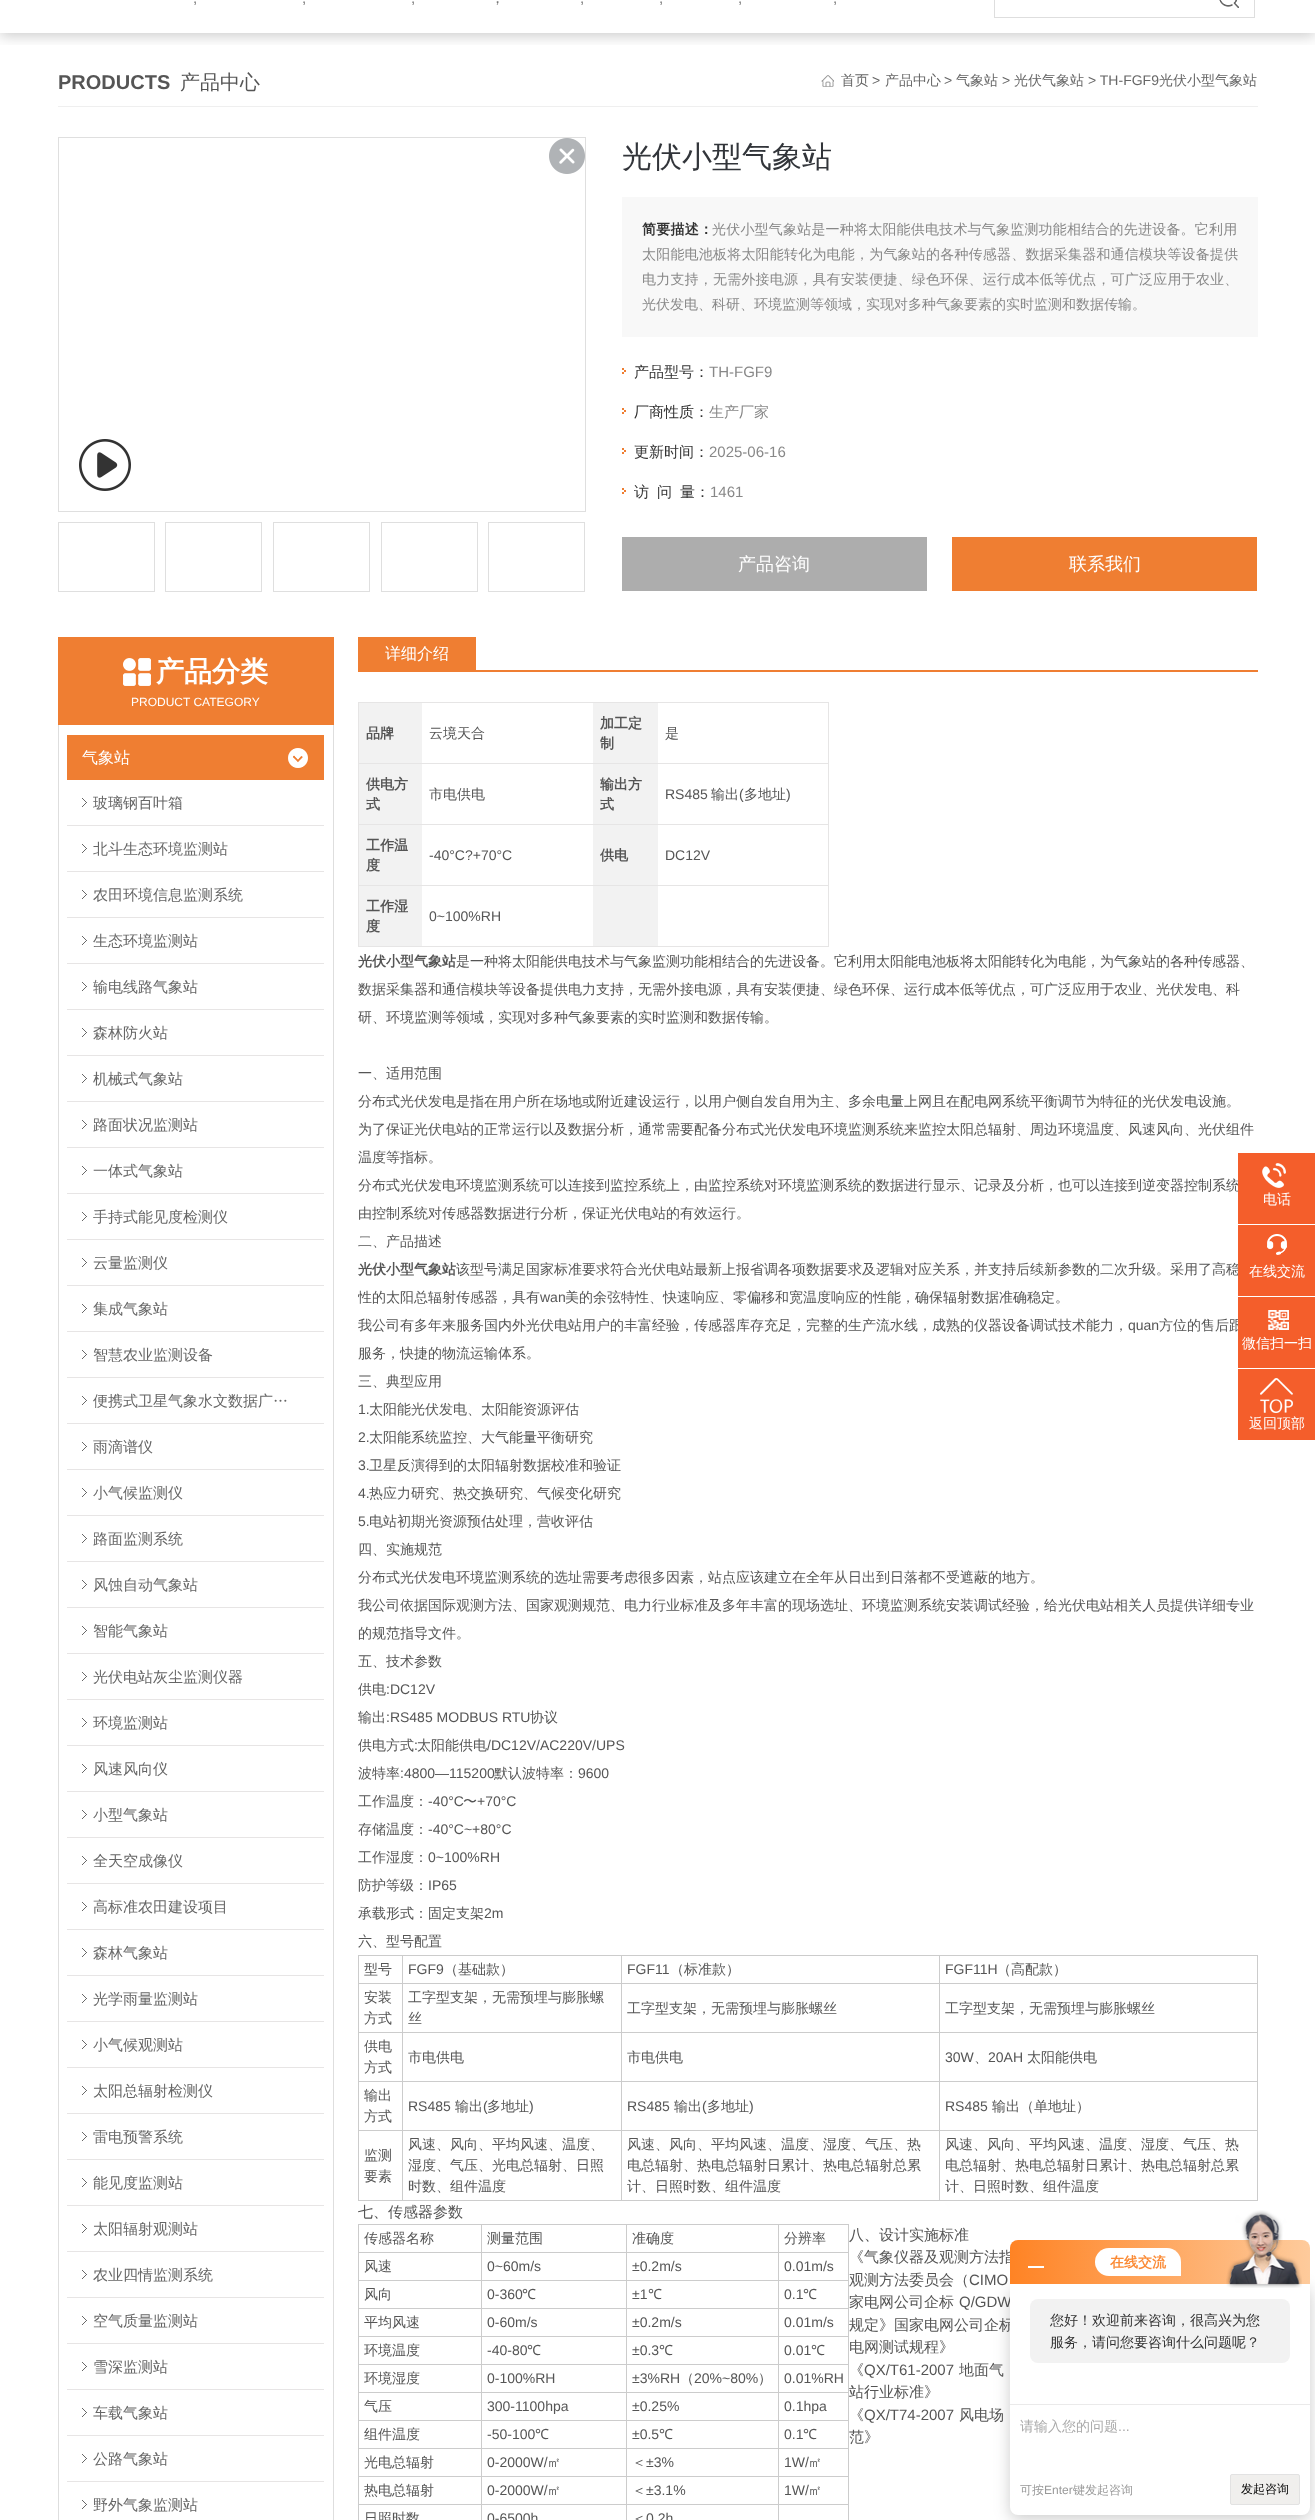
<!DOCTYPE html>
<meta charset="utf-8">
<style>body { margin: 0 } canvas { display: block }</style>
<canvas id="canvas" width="1315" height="2520"></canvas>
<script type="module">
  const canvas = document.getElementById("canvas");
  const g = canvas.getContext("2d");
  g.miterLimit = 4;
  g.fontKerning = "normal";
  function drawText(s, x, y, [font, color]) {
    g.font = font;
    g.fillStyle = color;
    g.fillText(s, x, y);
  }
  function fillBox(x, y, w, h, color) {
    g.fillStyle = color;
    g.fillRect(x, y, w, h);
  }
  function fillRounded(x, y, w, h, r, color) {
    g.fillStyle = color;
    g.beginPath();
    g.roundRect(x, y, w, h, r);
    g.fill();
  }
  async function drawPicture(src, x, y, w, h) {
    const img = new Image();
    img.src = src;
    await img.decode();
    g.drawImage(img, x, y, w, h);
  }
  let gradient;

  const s1 = ["15px Liberation Sans", "#777777"];
  const s2 = ["500 15px WenQuanYi Zen Hei", "#777777"];
  const s3 = ["bold 20px Liberation Sans", "#555555"];
  const s4 = ["500 20px WenQuanYi Zen Hei", "#555555"];
  const s5 = ["500 14px WenQuanYi Zen Hei", "#666666"];
  const s6 = ["14px Liberation Sans", "#666666"];
  const s7 = ["500 30px WenQuanYi Zen Hei", "#32353A"];
  const s8 = ["bold 14px WenQuanYi Zen Hei", "#333333"];
  const s9 = ["500 14px WenQuanYi Zen Hei", "#888888"];
  const s10 = ["500 15px WenQuanYi Zen Hei", "#333333"];
  const s11 = ["15px Liberation Sans", "#888888"];
  const s12 = ["500 15px WenQuanYi Zen Hei", "#888888"];
  const s13 = ["500 18px WenQuanYi Zen Hei", "#FFFFFF"];
  const s14 = ["bold 28px WenQuanYi Zen Hei", "#FFFFFF"];
  const s15 = ["12px Liberation Sans", "#FFFFFF"];
  const s16 = ["500 16px WenQuanYi Zen Hei", "#FFFFFF"];
  const s17 = ["500 15px WenQuanYi Zen Hei", "#666666"];
  const s18 = ["bold 14px WenQuanYi Zen Hei", "#555555"];
  const s19 = ["500 14px WenQuanYi Zen Hei", "#555555"];
  const s20 = ["14px Liberation Sans", "#555555"];
  const s21 = ["500 15px WenQuanYi Zen Hei", "#555555"];
  const s22 = ["14px Noto Sans", "#555555"];
  const s23 = ["15px Liberation Sans", "#555555"];
  const s24 = ["500 14px WenQuanYi Zen Hei", "#FFFFFF"];
  const s25 = ["bold 14px WenQuanYi Zen Hei", "#FB8B36"];
  const s26 = ["500 14px WenQuanYi Zen Hei", "#333333"];
  const s27 = ["500 14px WenQuanYi Zen Hei", "#AAAAAA"];
  const s28 = ["14px Liberation Sans", "#AAAAAA"];
  const s29 = ["500 12px WenQuanYi Zen Hei", "#999999"];
  const s30 = ["12px Liberation Sans", "#999999"];
  const s31 = ["500 12px WenQuanYi Zen Hei", "#000000"];

  fillBox(0, 0, 1315, 2520, "#FFFFFF");
  g.save();
  g.beginPath();
  g.rect(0, 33, 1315, 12);
  g.clip();
  g.fillStyle = "rgba(0, 0, 0, 0.2)";
  g.filter = "blur(7px)";
  g.beginPath();
  g.rect(0, -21, 1315, 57);
  g.fill();
  g.filter = "none";
  g.restore();
  drawText(",", 193, 3, s1);
  drawText(",", 302, 3, s1);
  drawText(",", 411, 3, s1);
  drawText("，", 490, 3, s2);
  drawText(",", 580, 3, s1);
  drawText(",", 659, 3, s1);
  drawText(",", 738, 3, s1);
  drawText(",", 833, 3, s1);
  fillBox(994, 17, 209, 1, "#DEDEDE");
  fillBox(994, 0, 1, 18, "#DEDEDE");
  await drawPicture("pic1.png", 1219, 0, 20, 8);
  fillBox(1254, 0, 1, 18, "#DEDEDE");
  fillBox(1203, 17, 52, 1, "#DEDEDE");
  fillBox(58, 106, 1200, 1, "#EFEFEF");
  drawText("PRODUCTS", 58, 89, s3);
  drawText("产品中心", 180, 89, s4);
  await drawPicture("pic2.png", 821, 75, 13, 12);
  drawText("首页", 841, 85, s5);
  drawText(">", 872, 85, s6);
  drawText("产品中心", 885, 85, s5);
  drawText(">", 944, 85, s6);
  drawText("气象站", 956, 85, s5);
  drawText(">", 1002, 85, s6);
  drawText("光伏气象站", 1014, 85, s5);
  drawText("> TH-FGF9", 1088, 85, s6);
  drawText("光伏小型气象站", 1159, 85, s5);
  g.strokeStyle = "#DFDFDF";
  g.strokeRect(58.5, 137.5, 527, 374);
  await drawPicture("pic3.png", 549, 138, 36, 36);
  await drawPicture("pic4.png", 79, 439, 52, 52);
  g.strokeRect(58.5, 522.5, 96, 69);
  g.strokeRect(165.5, 522.5, 96, 69);
  g.strokeRect(273.5, 522.5, 96, 69);
  g.strokeRect(381.5, 522.5, 96, 69);
  g.strokeRect(488.5, 522.5, 96, 69);
  drawText("光伏小型气象站", 622, 167, s7);
  fillBox(622, 197, 636, 140, "#F8F8F8");
  g.letterSpacing = "0.25px";
  drawText("简要描述：", 642, 234, s8);
  g.letterSpacing = "0.2px";
  drawText("光伏小型气象站是一种将太阳能供电技术与气象监测功能相结合的先进设备。它利用", 712, 234, s9);
  drawText("太阳能电池板将太阳能转化为电能，为气象站的各种传感器、数据采集器和通信模块等设备提供", 642, 259, s9);
  drawText("电力支持，无需外接电源，具有安装便捷、绿色环保、运行成本低等优点，可广泛应用于农业、", 642, 284, s9);
  g.letterSpacing = "0px";
  drawText("光伏发电、科研、环境监测等领域，实现对多种气象要素的实时监测和数据传输。", 642, 309, s9);
  await drawPicture("pic5.png", 622, 368, 4, 6);
  drawText("产品型号：", 634, 377, s10);
  drawText("TH-FGF9", 709, 377, s11);
  await drawPicture("pic5.png", 622, 408, 4, 6);
  drawText("厂商性质：", 634, 417, s10);
  drawText("生产厂家", 709, 417, s12);
  await drawPicture("pic5.png", 622, 448, 4, 6);
  drawText("更新时间：", 634, 457, s10);
  drawText("2025-06-16", 709, 457, s11);
  await drawPicture("pic5.png", 622, 488, 4, 6);
  drawText("访", 634, 497, s10);
  drawText("问", 657, 497, s10);
  drawText("量：", 680, 497, s10);
  drawText("1461", 710, 497, s11);
  fillBox(622, 537, 305, 54, "#ADADAD");
  drawText("产品咨询", 738, 570, s13);
  fillBox(952, 537, 305, 54, "#EF7E32");
  drawText("联系我们", 1069, 570, s13);
  fillBox(58, 637, 276, 88, "#EF7E32");
  await drawPicture("pic6.png", 123, 658, 28, 28);
  drawText("产品分类", 156, 681, s14);
  drawText("PRODUCT CATEGORY", 131, 706, s15);
  fillBox(333, 725, 1, 1795, "#DEDEDE");
  fillBox(58, 725, 1, 1795, "#DEDEDE");
  fillBox(67, 735, 257, 45, "#EF7E32");
  drawText("气象站", 82, 763, s16);
  await drawPicture("pic7.png", 288, 748, 20, 20);
  await drawPicture("pic8.png", 82, 798, 5, 9);
  drawText("玻璃钢百叶箱", 93, 808, s17);
  await drawPicture("pic8.png", 82, 844, 5, 9);
  fillBox(67, 825, 257, 1, "#E7E5E5");
  drawText("北斗生态环境监测站", 93, 854, s17);
  await drawPicture("pic8.png", 82, 890, 5, 9);
  fillBox(67, 871, 257, 1, "#E7E5E5");
  drawText("农田环境信息监测系统", 93, 900, s17);
  await drawPicture("pic8.png", 82, 936, 5, 9);
  fillBox(67, 917, 257, 1, "#E7E5E5");
  drawText("生态环境监测站", 93, 946, s17);
  await drawPicture("pic8.png", 82, 982, 5, 9);
  fillBox(67, 963, 257, 1, "#E7E5E5");
  drawText("输电线路气象站", 93, 992, s17);
  await drawPicture("pic8.png", 82, 1028, 5, 9);
  fillBox(67, 1009, 257, 1, "#E7E5E5");
  drawText("森林防火站", 93, 1038, s17);
  await drawPicture("pic8.png", 82, 1074, 5, 9);
  fillBox(67, 1055, 257, 1, "#E7E5E5");
  drawText("机械式气象站", 93, 1084, s17);
  await drawPicture("pic8.png", 82, 1120, 5, 9);
  fillBox(67, 1101, 257, 1, "#E7E5E5");
  drawText("路面状况监测站", 93, 1130, s17);
  await drawPicture("pic8.png", 82, 1166, 5, 9);
  fillBox(67, 1147, 257, 1, "#E7E5E5");
  drawText("一体式气象站", 93, 1176, s17);
  await drawPicture("pic8.png", 82, 1212, 5, 9);
  fillBox(67, 1193, 257, 1, "#E7E5E5");
  drawText("手持式能见度检测仪", 93, 1222, s17);
  await drawPicture("pic8.png", 82, 1258, 5, 9);
  fillBox(67, 1239, 257, 1, "#E7E5E5");
  drawText("云量监测仪", 93, 1268, s17);
  await drawPicture("pic8.png", 82, 1304, 5, 9);
  fillBox(67, 1285, 257, 1, "#E7E5E5");
  drawText("集成气象站", 93, 1314, s17);
  await drawPicture("pic8.png", 82, 1350, 5, 9);
  fillBox(67, 1331, 257, 1, "#E7E5E5");
  drawText("智慧农业监测设备", 93, 1360, s17);
  await drawPicture("pic8.png", 82, 1396, 5, 9);
  fillBox(67, 1377, 257, 1, "#E7E5E5");
  drawText("便携式卫星气象水文数据广…", 93, 1406, s17);
  await drawPicture("pic8.png", 82, 1442, 5, 9);
  fillBox(67, 1423, 257, 1, "#E7E5E5");
  drawText("雨滴谱仪", 93, 1452, s17);
  await drawPicture("pic8.png", 82, 1488, 5, 9);
  fillBox(67, 1469, 257, 1, "#E7E5E5");
  drawText("小气候监测仪", 93, 1498, s17);
  await drawPicture("pic8.png", 82, 1534, 5, 9);
  fillBox(67, 1515, 257, 1, "#E7E5E5");
  drawText("路面监测系统", 93, 1544, s17);
  await drawPicture("pic8.png", 82, 1580, 5, 9);
  fillBox(67, 1561, 257, 1, "#E7E5E5");
  drawText("风蚀自动气象站", 93, 1590, s17);
  await drawPicture("pic8.png", 82, 1626, 5, 9);
  fillBox(67, 1607, 257, 1, "#E7E5E5");
  drawText("智能气象站", 93, 1636, s17);
  await drawPicture("pic8.png", 82, 1672, 5, 9);
  fillBox(67, 1653, 257, 1, "#E7E5E5");
  drawText("光伏电站灰尘监测仪器", 93, 1682, s17);
  await drawPicture("pic8.png", 82, 1718, 5, 9);
  fillBox(67, 1699, 257, 1, "#E7E5E5");
  drawText("环境监测站", 93, 1728, s17);
  await drawPicture("pic8.png", 82, 1764, 5, 9);
  fillBox(67, 1745, 257, 1, "#E7E5E5");
  drawText("风速风向仪", 93, 1774, s17);
  await drawPicture("pic8.png", 82, 1810, 5, 9);
  fillBox(67, 1791, 257, 1, "#E7E5E5");
  drawText("小型气象站", 93, 1820, s17);
  await drawPicture("pic8.png", 82, 1856, 5, 9);
  fillBox(67, 1837, 257, 1, "#E7E5E5");
  drawText("全天空成像仪", 93, 1866, s17);
  await drawPicture("pic8.png", 82, 1902, 5, 9);
  fillBox(67, 1883, 257, 1, "#E7E5E5");
  drawText("高标准农田建设项目", 93, 1912, s17);
  await drawPicture("pic8.png", 82, 1948, 5, 9);
  fillBox(67, 1929, 257, 1, "#E7E5E5");
  drawText("森林气象站", 93, 1958, s17);
  await drawPicture("pic8.png", 82, 1994, 5, 9);
  fillBox(67, 1975, 257, 1, "#E7E5E5");
  drawText("光学雨量监测站", 93, 2004, s17);
  await drawPicture("pic8.png", 82, 2040, 5, 9);
  fillBox(67, 2021, 257, 1, "#E7E5E5");
  drawText("小气候观测站", 93, 2050, s17);
  await drawPicture("pic8.png", 82, 2086, 5, 9);
  fillBox(67, 2067, 257, 1, "#E7E5E5");
  drawText("太阳总辐射检测仪", 93, 2096, s17);
  await drawPicture("pic8.png", 82, 2132, 5, 9);
  fillBox(67, 2113, 257, 1, "#E7E5E5");
  drawText("雷电预警系统", 93, 2142, s17);
  await drawPicture("pic8.png", 82, 2178, 5, 9);
  fillBox(67, 2159, 257, 1, "#E7E5E5");
  drawText("能见度监测站", 93, 2188, s17);
  await drawPicture("pic8.png", 82, 2224, 5, 9);
  fillBox(67, 2205, 257, 1, "#E7E5E5");
  drawText("太阳辐射观测站", 93, 2234, s17);
  await drawPicture("pic8.png", 82, 2270, 5, 9);
  fillBox(67, 2251, 257, 1, "#E7E5E5");
  drawText("农业四情监测系统", 93, 2280, s17);
  await drawPicture("pic8.png", 82, 2316, 5, 9);
  fillBox(67, 2297, 257, 1, "#E7E5E5");
  drawText("空气质量监测站", 93, 2326, s17);
  await drawPicture("pic8.png", 82, 2362, 5, 9);
  fillBox(67, 2343, 257, 1, "#E7E5E5");
  drawText("雪深监测站", 93, 2372, s17);
  await drawPicture("pic8.png", 82, 2408, 5, 9);
  fillBox(67, 2389, 257, 1, "#E7E5E5");
  drawText("车载气象站", 93, 2418, s17);
  await drawPicture("pic8.png", 82, 2454, 5, 9);
  fillBox(67, 2435, 257, 1, "#E7E5E5");
  drawText("公路气象站", 93, 2464, s17);
  await drawPicture("pic8.png", 82, 2500, 5, 9);
  fillBox(67, 2481, 257, 1, "#E7E5E5");
  drawText("野外气象监测站", 93, 2510, s17);
  fillBox(358, 670, 900, 2, "#EF7E32");
  fillBox(358, 637, 118, 33, "#EF7E32");
  drawText("详细介绍", 385, 659, s16);
  fillBox(358, 702, 471, 1, "#E6E5E5");
  fillBox(828, 702, 1, 245, "#E6E5E5");
  fillBox(358, 702, 1, 245, "#E6E5E5");
  fillBox(359, 703, 63, 60, "#F2F2F2");
  drawText("品牌", 366, 738, s18);
  drawText("云境天合", 429, 738, s19);
  fillBox(593, 703, 65, 60, "#F2F2F2");
  drawText("加工定", 600, 728, s18);
  drawText("制", 600, 748, s18);
  fillBox(358, 763, 471, 1, "#E6E5E5");
  drawText("是", 665, 738, s19);
  fillBox(359, 764, 63, 60, "#F2F2F2");
  drawText("供电方", 366, 789, s18);
  drawText("式", 366, 809, s18);
  drawText("市电供电", 429, 799, s19);
  fillBox(593, 764, 65, 60, "#F2F2F2");
  drawText("输出方", 600, 789, s18);
  drawText("式", 600, 809, s18);
  fillBox(358, 824, 471, 1, "#E6E5E5");
  drawText("RS485", 665, 799, s20);
  drawText("输出", 711, 799, s19);
  drawText("(", 739, 799, s20);
  drawText("多地址", 744, 799, s19);
  drawText(")", 786, 799, s20);
  fillBox(359, 825, 63, 60, "#F2F2F2");
  drawText("工作温", 366, 850, s18);
  drawText("度", 366, 870, s18);
  drawText("-40°C?+70°C", 429, 860, s20);
  fillBox(593, 825, 65, 60, "#F2F2F2");
  drawText("供电", 600, 860, s18);
  fillBox(358, 885, 471, 1, "#E6E5E5");
  drawText("DC12V", 665, 860, s20);
  fillBox(359, 886, 63, 60, "#F2F2F2");
  drawText("工作湿", 366, 911, s18);
  drawText("度", 366, 931, s18);
  drawText("0~100%RH", 429, 921, s20);
  fillBox(593, 886, 65, 60, "#F2F2F2");
  fillBox(358, 946, 471, 1, "#E6E5E5");
  drawText("光伏小型气象站", 358, 966, s18);
  drawText("是一种将太阳能供电技术与气象监测功能相结合的先进设备。它利用太阳能电池板将太阳能转化为电能，为气象站的各种传感器、", 456, 966, s19);
  drawText("数据采集器和通信模块等设备提供电力支持，无需外接电源，具有安装便捷、绿色环保、运行成本低等优点，可广泛应用于农业、光伏发电、科", 358, 994, s19);
  drawText("研、环境监测等领域，实现对多种气象要素的实时监测和数据传输。", 358, 1022, s19);
  drawText("一、适用范围", 358, 1078, s19);
  drawText("分布式光伏发电是指在用户所在场地或附近建设运行，以用户侧自发自用为主、多余电量上网且在配电网系统平衡调节为特征的光伏发电设施。", 358, 1106, s19);
  drawText("为了保证光伏电站的正常运行以及数据分析，通常需要配备分布式光伏发电环境监测系统来监控太阳总辐射、周边环境温度、风速风向、光伏组件", 358, 1134, s19);
  drawText("温度等指标。", 358, 1162, s19);
  drawText("分布式光伏发电环境监测系统可以连接到监控系统上，由监控系统对环境监测系统的数据进行显示、记录及分析，也可以连接到逆变器控制系统", 358, 1190, s19);
  drawText("由控制系统对传感器数据进行分析，保证光伏电站的有效运行。", 358, 1218, s19);
  drawText("二、产品描述", 358, 1246, s19);
  drawText("光伏小型气象站", 358, 1274, s18);
  drawText("该型号满足国家标准要求符合光伏电站最新上报省调各项数据要求及逻辑对应关系，并支持后续新参数的二次升级。采用了高稳", 456, 1274, s19);
  g.save();
  g.beginPath();
  g.rect(358, 702, 900, 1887);
  g.clip();
  drawText("性的太阳总辐射传感器，具有", 358, 1302, s19);
  g.restore();
  drawText("wan", 540, 1302, s20);
  drawText("美的余弦特性、快速响应、零偏移和宽温度响应的性能，确保辐射数据准确稳定。", 565, 1302, s19);
  drawText("我公司有多年来服务国内外光伏电站用户的丰富经验，传感器库存充足，完整的生产流水线，成熟的仪器设备调试技术能力，", 358, 1330, s19);
  drawText("quan", 1128, 1330, s20);
  drawText("方位的售后跟", 1159, 1330, s19);
  drawText("服务，快捷的物流运输体系。", 358, 1358, s19);
  drawText("三、典型应用", 358, 1386, s19);
  drawText("1.", 358, 1414, s20);
  drawText("太阳能光伏发电、太阳能资源评估", 369, 1414, s19);
  drawText("2.", 358, 1442, s20);
  drawText("太阳能系统监控、大气能量平衡研究", 369, 1442, s19);
  drawText("3.", 358, 1470, s20);
  drawText("卫星反演得到的太阳辐射数据校准和验证", 369, 1470, s19);
  drawText("4.", 358, 1498, s20);
  drawText("热应力研究、热交换研究、气候变化研究", 369, 1498, s19);
  drawText("5.", 358, 1526, s20);
  drawText("电站初期光资源预估处理，营收评估", 369, 1526, s19);
  drawText("四、实施规范", 358, 1554, s19);
  drawText("分布式光伏发电环境监测系统的选址需要考虑很多因素，站点应该建立在全年从日出到日落都不受遮蔽的地方。", 358, 1582, s19);
  drawText("我公司依据国际观测方法、国家观测规范、电力行业标准及多年丰富的现场选址、环境监测系统安装调试经验，给光伏电站相关人员提供详细专业", 358, 1610, s19);
  drawText("的规范指导文件。", 358, 1638, s19);
  drawText("五、技术参数", 358, 1666, s19);
  drawText("供电", 358, 1694, s19);
  drawText(":DC12V", 386, 1694, s20);
  g.save();
  g.beginPath();
  g.rect(358, 702, 900, 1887);
  g.clip();
  drawText("输出", 358, 1722, s19);
  g.restore();
  drawText(":RS485 MODBUS RTU", 386, 1722, s20);
  drawText("协议", 530, 1722, s19);
  drawText("供电方式", 358, 1750, s19);
  drawText(":", 414, 1750, s20);
  drawText("太阳能供电", 417, 1750, s19);
  drawText("/DC12V/AC220V/UPS", 487, 1750, s20);
  drawText("波特率", 358, 1778, s19);
  drawText(":4800—115200", 400, 1778, s20);
  drawText("默认波特率：", 494, 1778, s19);
  drawText("9600", 578, 1778, s20);
  drawText("工作温度：", 358, 1806, s19);
  drawText("-40°C", 428, 1806, s20);
  drawText("〜", 463, 1806, s19);
  drawText("+70°C", 477, 1806, s20);
  drawText("存储温度：", 358, 1834, s19);
  drawText("-40°C~+80°C", 428, 1834, s20);
  drawText("工作湿度：", 358, 1862, s19);
  drawText("0~100%RH", 428, 1862, s20);
  drawText("防护等级：", 358, 1890, s19);
  drawText("IP65", 428, 1890, s20);
  drawText("承载形式：固定支架", 358, 1918, s19);
  drawText("2m", 484, 1918, s20);
  drawText("六、型号配置", 358, 1946, s19);
  fillBox(939, 1955, 319, 1, "#CCCCCC");
  fillBox(939, 1983, 319, 1, "#CCCCCC");
  fillBox(939, 2032, 319, 1, "#CCCCCC");
  fillBox(939, 2081, 319, 1, "#CCCCCC");
  fillBox(939, 2130, 319, 1, "#CCCCCC");
  fillBox(1257, 2130, 1, 71, "#CCCCCC");
  fillBox(939, 2200, 319, 1, "#CCCCCC");
  fillBox(939, 2130, 1, 71, "#CCCCCC");
  fillBox(621, 2130, 319, 1, "#CCCCCC");
  fillBox(939, 2081, 1, 50, "#CCCCCC");
  fillBox(621, 2081, 319, 1, "#CCCCCC");
  fillBox(939, 2032, 1, 50, "#CCCCCC");
  fillBox(621, 2032, 319, 1, "#CCCCCC");
  fillBox(939, 1983, 1, 50, "#CCCCCC");
  fillBox(621, 1983, 319, 1, "#CCCCCC");
  fillBox(939, 1955, 1, 29, "#CCCCCC");
  fillBox(621, 1955, 319, 1, "#CCCCCC");
  fillBox(621, 2200, 319, 1, "#CCCCCC");
  fillBox(621, 2130, 1, 71, "#CCCCCC");
  fillBox(402, 2130, 220, 1, "#CCCCCC");
  fillBox(621, 2081, 1, 50, "#CCCCCC");
  fillBox(402, 2081, 220, 1, "#CCCCCC");
  fillBox(621, 2032, 1, 50, "#CCCCCC");
  fillBox(402, 2032, 220, 1, "#CCCCCC");
  fillBox(621, 1983, 1, 50, "#CCCCCC");
  fillBox(402, 1983, 220, 1, "#CCCCCC");
  fillBox(621, 1955, 1, 29, "#CCCCCC");
  fillBox(402, 1955, 220, 1, "#CCCCCC");
  fillBox(402, 2200, 220, 1, "#CCCCCC");
  fillBox(402, 2130, 1, 71, "#CCCCCC");
  fillBox(358, 2130, 45, 1, "#CCCCCC");
  fillBox(402, 2081, 1, 50, "#CCCCCC");
  fillBox(358, 2081, 45, 1, "#CCCCCC");
  fillBox(402, 2032, 1, 50, "#CCCCCC");
  fillBox(358, 2032, 45, 1, "#CCCCCC");
  fillBox(402, 1983, 1, 50, "#CCCCCC");
  fillBox(358, 1983, 45, 1, "#CCCCCC");
  fillBox(402, 1955, 1, 29, "#CCCCCC");
  fillBox(358, 1955, 45, 1, "#CCCCCC");
  fillBox(358, 2200, 45, 1, "#CCCCCC");
  fillBox(358, 2130, 1, 71, "#CCCCCC");
  fillBox(358, 2081, 1, 50, "#CCCCCC");
  fillBox(358, 2032, 1, 50, "#CCCCCC");
  fillBox(358, 1983, 1, 50, "#CCCCCC");
  fillBox(358, 1955, 1, 29, "#CCCCCC");
  drawText("型号", 364, 1974, s19);
  drawText("FGF9", 408, 1974, s20);
  drawText("（基础款）", 444, 1974, s19);
  drawText("FGF11", 627, 1974, s20);
  drawText("（标准款）", 670, 1974, s19);
  fillBox(1257, 2081, 1, 50, "#CCCCCC");
  fillBox(1257, 2032, 1, 50, "#CCCCCC");
  fillBox(1257, 1983, 1, 50, "#CCCCCC");
  fillBox(1257, 1955, 1, 29, "#CCCCCC");
  drawText("FGF11H", 945, 1974, s20);
  drawText("（高配款）", 997, 1974, s19);
  drawText("安装", 364, 2002, s19);
  drawText("方式", 364, 2023, s19);
  drawText("工字型支架，无需预埋与膨胀螺", 408, 2002, s19);
  drawText("丝", 408, 2023, s19);
  drawText("工字型支架，无需预埋与膨胀螺丝", 627, 2013, s19);
  drawText("工字型支架，无需预埋与膨胀螺丝", 945, 2013, s19);
  drawText("供电", 364, 2051, s19);
  drawText("方式", 364, 2072, s19);
  drawText("市电供电", 408, 2062, s19);
  drawText("市电供电", 627, 2062, s19);
  drawText("30W", 945, 2062, s20);
  drawText("、", 974, 2062, s19);
  drawText("20AH", 988, 2062, s20);
  drawText("太阳能供电", 1027, 2062, s19);
  drawText("输出", 364, 2100, s19);
  drawText("方式", 364, 2121, s19);
  drawText("RS485", 408, 2111, s20);
  drawText("输出", 455, 2111, s19);
  drawText("(", 483, 2111, s20);
  drawText("多地址", 487, 2111, s19);
  drawText(")", 529, 2111, s20);
  drawText("RS485", 627, 2111, s20);
  drawText("输出", 674, 2111, s19);
  drawText("(", 702, 2111, s20);
  drawText("多地址", 707, 2111, s19);
  drawText(")", 749, 2111, s20);
  drawText("RS485", 945, 2111, s20);
  drawText("输出（单地址）", 992, 2111, s19);
  drawText("监测", 364, 2160, s19);
  drawText("要素", 364, 2181, s19);
  drawText("风速、风向、平均风速、温度、", 408, 2149, s19);
  drawText("湿度、气压、光电总辐射、日照", 408, 2170, s19);
  drawText("时数、组件温度", 408, 2191, s19);
  drawText("风速、风向、平均风速、温度、湿度、气压、热", 627, 2149, s19);
  drawText("电总辐射、热电总辐射日累计、热电总辐射总累", 627, 2170, s19);
  drawText("计、日照时数、组件温度", 627, 2191, s19);
  drawText("风速、风向、平均风速、温度、湿度、气压、热", 945, 2149, s19);
  drawText("电总辐射、热电总辐射日累计、热电总辐射总累", 945, 2170, s19);
  drawText("计、日照时数、组件温度", 945, 2191, s19);
  drawText("七、传感器参数", 358, 2217, s21);
  fillBox(778, 2224, 71, 1, "#CCCCCC");
  fillBox(778, 2252, 71, 1, "#CCCCCC");
  fillBox(778, 2280, 71, 1, "#CCCCCC");
  fillBox(778, 2308, 71, 1, "#CCCCCC");
  fillBox(778, 2336, 71, 1, "#CCCCCC");
  fillBox(778, 2364, 71, 1, "#CCCCCC");
  fillBox(778, 2392, 71, 1, "#CCCCCC");
  fillBox(778, 2420, 71, 1, "#CCCCCC");
  fillBox(778, 2448, 71, 1, "#CCCCCC");
  fillBox(778, 2476, 71, 1, "#CCCCCC");
  fillBox(778, 2504, 71, 1, "#CCCCCC");
  fillBox(778, 2504, 1, 16, "#CCCCCC");
  fillBox(626, 2504, 153, 1, "#CCCCCC");
  fillBox(778, 2476, 1, 29, "#CCCCCC");
  fillBox(626, 2476, 153, 1, "#CCCCCC");
  fillBox(778, 2448, 1, 29, "#CCCCCC");
  fillBox(626, 2448, 153, 1, "#CCCCCC");
  fillBox(778, 2420, 1, 29, "#CCCCCC");
  fillBox(626, 2420, 153, 1, "#CCCCCC");
  fillBox(778, 2392, 1, 29, "#CCCCCC");
  fillBox(626, 2392, 153, 1, "#CCCCCC");
  fillBox(778, 2364, 1, 29, "#CCCCCC");
  fillBox(626, 2364, 153, 1, "#CCCCCC");
  fillBox(778, 2336, 1, 29, "#CCCCCC");
  fillBox(626, 2336, 153, 1, "#CCCCCC");
  fillBox(778, 2308, 1, 29, "#CCCCCC");
  fillBox(626, 2308, 153, 1, "#CCCCCC");
  fillBox(778, 2280, 1, 29, "#CCCCCC");
  fillBox(626, 2280, 153, 1, "#CCCCCC");
  fillBox(778, 2252, 1, 29, "#CCCCCC");
  fillBox(626, 2252, 153, 1, "#CCCCCC");
  fillBox(778, 2224, 1, 29, "#CCCCCC");
  fillBox(626, 2224, 153, 1, "#CCCCCC");
  fillBox(626, 2504, 1, 16, "#CCCCCC");
  fillBox(481, 2504, 146, 1, "#CCCCCC");
  fillBox(626, 2476, 1, 29, "#CCCCCC");
  fillBox(481, 2476, 146, 1, "#CCCCCC");
  fillBox(626, 2448, 1, 29, "#CCCCCC");
  fillBox(481, 2448, 146, 1, "#CCCCCC");
  fillBox(626, 2420, 1, 29, "#CCCCCC");
  fillBox(481, 2420, 146, 1, "#CCCCCC");
  fillBox(626, 2392, 1, 29, "#CCCCCC");
  fillBox(481, 2392, 146, 1, "#CCCCCC");
  fillBox(626, 2364, 1, 29, "#CCCCCC");
  fillBox(481, 2364, 146, 1, "#CCCCCC");
  fillBox(626, 2336, 1, 29, "#CCCCCC");
  fillBox(481, 2336, 146, 1, "#CCCCCC");
  fillBox(626, 2308, 1, 29, "#CCCCCC");
  fillBox(481, 2308, 146, 1, "#CCCCCC");
  fillBox(626, 2280, 1, 29, "#CCCCCC");
  fillBox(481, 2280, 146, 1, "#CCCCCC");
  fillBox(626, 2252, 1, 29, "#CCCCCC");
  fillBox(481, 2252, 146, 1, "#CCCCCC");
  fillBox(626, 2224, 1, 29, "#CCCCCC");
  fillBox(481, 2224, 146, 1, "#CCCCCC");
  fillBox(481, 2504, 1, 16, "#CCCCCC");
  fillBox(358, 2504, 124, 1, "#CCCCCC");
  fillBox(481, 2476, 1, 29, "#CCCCCC");
  fillBox(358, 2476, 124, 1, "#CCCCCC");
  fillBox(481, 2448, 1, 29, "#CCCCCC");
  fillBox(358, 2448, 124, 1, "#CCCCCC");
  fillBox(481, 2420, 1, 29, "#CCCCCC");
  fillBox(358, 2420, 124, 1, "#CCCCCC");
  fillBox(481, 2392, 1, 29, "#CCCCCC");
  fillBox(358, 2392, 124, 1, "#CCCCCC");
  fillBox(481, 2364, 1, 29, "#CCCCCC");
  fillBox(358, 2364, 124, 1, "#CCCCCC");
  fillBox(481, 2336, 1, 29, "#CCCCCC");
  fillBox(358, 2336, 124, 1, "#CCCCCC");
  fillBox(481, 2308, 1, 29, "#CCCCCC");
  fillBox(358, 2308, 124, 1, "#CCCCCC");
  fillBox(481, 2280, 1, 29, "#CCCCCC");
  fillBox(358, 2280, 124, 1, "#CCCCCC");
  fillBox(481, 2252, 1, 29, "#CCCCCC");
  fillBox(358, 2252, 124, 1, "#CCCCCC");
  fillBox(481, 2224, 1, 29, "#CCCCCC");
  fillBox(358, 2224, 124, 1, "#CCCCCC");
  fillBox(358, 2504, 1, 16, "#CCCCCC");
  fillBox(358, 2476, 1, 29, "#CCCCCC");
  fillBox(358, 2448, 1, 29, "#CCCCCC");
  fillBox(358, 2420, 1, 29, "#CCCCCC");
  fillBox(358, 2392, 1, 29, "#CCCCCC");
  fillBox(358, 2364, 1, 29, "#CCCCCC");
  fillBox(358, 2336, 1, 29, "#CCCCCC");
  fillBox(358, 2308, 1, 29, "#CCCCCC");
  fillBox(358, 2280, 1, 29, "#CCCCCC");
  fillBox(358, 2252, 1, 29, "#CCCCCC");
  fillBox(358, 2224, 1, 29, "#CCCCCC");
  drawText("传感器名称", 364, 2243, s19);
  drawText("测量范围", 487, 2243, s19);
  drawText("准确度", 632, 2243, s19);
  fillBox(848, 2504, 1, 16, "#CCCCCC");
  fillBox(848, 2476, 1, 29, "#CCCCCC");
  fillBox(848, 2448, 1, 29, "#CCCCCC");
  fillBox(848, 2420, 1, 29, "#CCCCCC");
  fillBox(848, 2392, 1, 29, "#CCCCCC");
  fillBox(848, 2364, 1, 29, "#CCCCCC");
  fillBox(848, 2336, 1, 29, "#CCCCCC");
  fillBox(848, 2308, 1, 29, "#CCCCCC");
  fillBox(848, 2280, 1, 29, "#CCCCCC");
  fillBox(848, 2252, 1, 29, "#CCCCCC");
  fillBox(848, 2224, 1, 29, "#CCCCCC");
  drawText("分辨率", 784, 2243, s19);
  drawText("风速", 364, 2271, s19);
  drawText("0~60m/s", 487, 2271, s20);
  drawText("±0.2m/s", 632, 2271, s20);
  drawText("0.01m/s", 784, 2271, s20);
  drawText("风向", 364, 2299, s19);
  drawText("0-360", 487, 2299, s20);
  drawText("℃", 522, 2299, s22);
  drawText("±1", 632, 2299, s20);
  drawText("℃", 648, 2299, s22);
  drawText("0.1", 784, 2299, s20);
  drawText("℃", 803, 2299, s22);
  drawText("平均风速", 364, 2327, s19);
  drawText("0-60m/s", 487, 2327, s20);
  drawText("±0.2m/s", 632, 2327, s20);
  drawText("0.01m/s", 784, 2327, s20);
  drawText("环境温度", 364, 2355, s19);
  drawText("-40-80", 487, 2355, s20);
  drawText("℃", 527, 2355, s22);
  drawText("±0.3", 632, 2355, s20);
  drawText("℃", 659, 2355, s22);
  drawText("0.01", 784, 2355, s20);
  drawText("℃", 811, 2355, s22);
  drawText("环境湿度", 364, 2383, s19);
  drawText("0-100%RH", 487, 2383, s20);
  drawText("±3%RH", 632, 2383, s20);
  drawText("（", 680, 2383, s19);
  drawText("20%~80%", 694, 2383, s20);
  drawText("）", 758, 2383, s19);
  drawText("0.01%RH", 784, 2383, s20);
  drawText("气压", 364, 2411, s19);
  drawText("300-1100hpa", 487, 2411, s20);
  drawText("±0.25%", 632, 2411, s20);
  drawText("0.1hpa", 784, 2411, s20);
  drawText("组件温度", 364, 2439, s19);
  drawText("-50-100", 487, 2439, s20);
  drawText("℃", 535, 2439, s22);
  drawText("±0.5", 632, 2439, s20);
  drawText("℃", 659, 2439, s22);
  drawText("0.1", 784, 2439, s20);
  drawText("℃", 803, 2439, s22);
  drawText("光电总辐射", 364, 2467, s19);
  drawText("0-2000W/", 487, 2467, s20);
  drawText("㎡", 547, 2467, s19);
  drawText("＜", 632, 2467, s19);
  drawText("±3%", 646, 2467, s20);
  drawText("1W/", 784, 2467, s20);
  drawText("㎡", 808, 2467, s19);
  drawText("热电总辐射", 364, 2495, s19);
  drawText("0-2000W/", 487, 2495, s20);
  drawText("㎡", 547, 2495, s19);
  drawText("＜", 632, 2495, s19);
  drawText("±3.1%", 646, 2495, s20);
  drawText("1W/", 784, 2495, s20);
  drawText("㎡", 808, 2495, s19);
  drawText("日照时数", 364, 2523, s19);
  drawText("0-6500h", 487, 2523, s20);
  drawText("＜", 632, 2523, s19);
  drawText("0.2h", 646, 2523, s20);
  drawText("八、设计实施标准", 849, 2240, s21);
  drawText("《气象仪器及观测方法指", 849, 2262, s21);
  drawText("观测方法委员会（", 849, 2285, s21);
  drawText("CIMO", 969, 2285, s23);
  drawText("家电网公司企标", 849, 2307, s21);
  drawText("Q/GDW", 959, 2307, s23);
  drawText("规定》国家电网公司企标", 849, 2330, s21);
  drawText("电网测试规程》", 849, 2352, s21);
  drawText("《", 849, 2375, s21);
  drawText("QX/T61-2007", 864, 2375, s23);
  drawText("地面气", 959, 2375, s21);
  drawText("站行业标准》", 849, 2397, s21);
  drawText("《", 849, 2420, s21);
  drawText("QX/T74-2007", 864, 2420, s23);
  drawText("风电场", 959, 2420, s21);
  drawText("范》", 849, 2442, s21);
  fillBox(1238, 1153, 77, 71, "#F45E2B");
  await drawPicture("pic9.png", 1262, 1163, 24, 25);
  drawText("电话", 1263, 1204, s24);
  fillBox(1238, 1225, 77, 71, "#F45E2B");
  await drawPicture("pic10.png", 1267, 1234, 20, 21);
  drawText("在线交流", 1249, 1276, s24);
  fillBox(1238, 1297, 77, 71, "#F45E2B");
  await drawPicture("pic11.png", 1268, 1310, 21, 20);
  drawText("微信扫一扫", 1242, 1348, s24);
  fillBox(1238, 1369, 77, 71, "#F45E2B");
  await drawPicture("pic12.png", 1260, 1378, 33, 35);
  drawText("返回顶部", 1249, 1428, s24);
  g.fillStyle = "rgba(0, 0, 0, 0.2)";
  g.filter = "blur(8px)";
  g.beginPath();
  g.roundRect(1010, 2288, 300, 231, 8);
  g.fill();
  g.filter = "none";
  gradient = g.createLinearGradient(1010, 2262, 1310, 2262);
  gradient.addColorStop(0, "#FF8324");
  gradient.addColorStop(1, "#FECB9C");
  g.fillStyle = gradient;
  g.beginPath();
  g.roundRect(1010, 2240, 300, 44, [8, 8, 0, 0]);
  g.fill();
  fillBox(1028, 2266, 16, 2, "#FFFFFF");
  g.beginPath();
  g.roundRect(1095, 2248, 86, 28, [14, 14, 0, 14]);
  g.fill();
  drawText("在线交流", 1110, 2267, s25);
  g.fillStyle = "#FFFFFF";
  g.beginPath();
  g.roundRect(1010, 2284, 300, 231, [0, 0, 8, 8]);
  g.fill();
  await drawPicture("pic13.png", 1226, 2210, 76, 78);
  fillRounded(1030, 2299, 260, 64, 8, "#F2F2F2");
  drawText("您好！欢迎前来咨询，很高兴为您", 1050, 2325, s26);
  drawText("服务，请问您要咨询什么问题呢？", 1050, 2347, s26);
  fillBox(1010, 2404, 300, 1, "#EAEAEA");
  drawText("请输入您的问题", 1020, 2431, s27);
  drawText("...", 1118, 2431, s28);
  drawText("可按", 1020, 2494, s29);
  drawText("Enter", 1044, 2494, s30);
  drawText("键发起咨询", 1073, 2494, s29);
  g.fillStyle = "#F0EFED";
  g.beginPath();
  g.roundRect(1230.5, 2474.5, 69, 30, 1.5);
  g.fill();
  g.strokeStyle = "#E2E2E2";
  g.stroke();
  drawText("发起咨询", 1241, 2493, s31);
</script>
